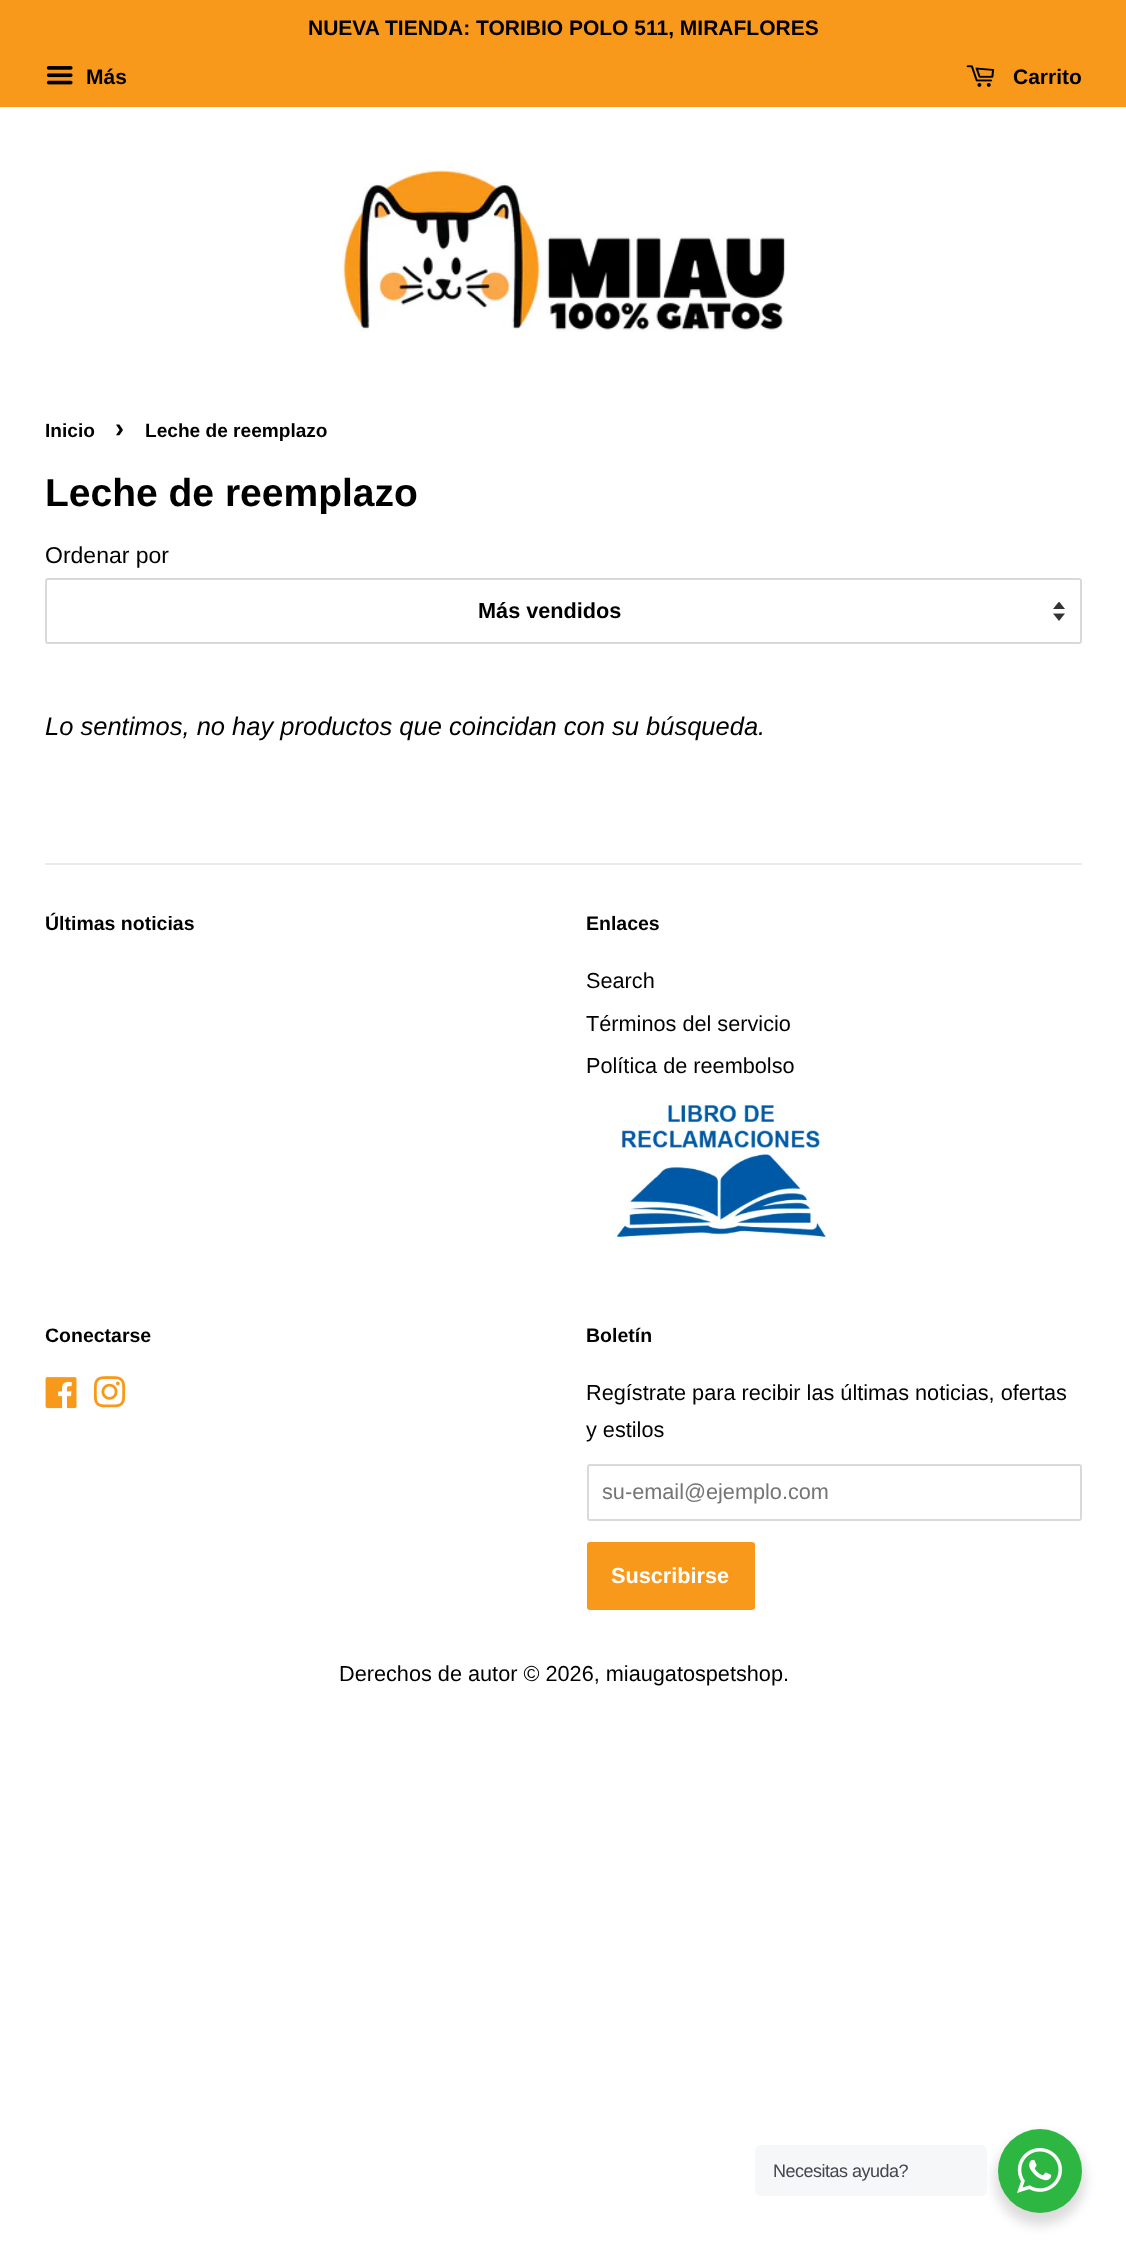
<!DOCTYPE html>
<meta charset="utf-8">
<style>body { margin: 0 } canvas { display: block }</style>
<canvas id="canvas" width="1126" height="2257"></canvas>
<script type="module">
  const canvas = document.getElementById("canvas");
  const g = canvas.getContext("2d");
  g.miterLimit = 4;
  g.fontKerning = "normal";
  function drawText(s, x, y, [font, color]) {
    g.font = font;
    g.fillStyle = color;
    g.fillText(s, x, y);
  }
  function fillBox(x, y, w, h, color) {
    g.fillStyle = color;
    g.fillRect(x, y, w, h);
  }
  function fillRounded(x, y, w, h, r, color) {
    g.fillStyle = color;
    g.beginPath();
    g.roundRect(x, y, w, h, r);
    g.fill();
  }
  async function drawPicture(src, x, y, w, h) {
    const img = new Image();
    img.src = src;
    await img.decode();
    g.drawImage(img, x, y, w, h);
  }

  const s1 = ["bold 21px Liberation Sans", "#000000"];
  const s2 = ["bold 19.1px Liberation Sans", "#000000"];
  const s3 = ["bold 27px Liberation Sans", "#000000"];
  const s4 = ["bold 39px Liberation Sans", "#000000"];
  const s5 = ["23px Liberation Sans", "#000000"];
  const s6 = ["bold 21.7px Liberation Sans", "#000000"];
  const s7 = ["italic 25.5px Liberation Sans", "#000000"];
  const s8 = ["bold 19.5px Liberation Sans", "#000000"];
  const s9 = ["21.7px Liberation Sans", "#000000"];
  const s10 = ["21.7px Liberation Sans", "#757575"];
  const s11 = ["bold 21.7px Liberation Sans", "#FFFFFF"];
  const s12 = ["18px Liberation Sans", "#43474E"];

  fillBox(0, 0, 1126, 2257, "#FFFFFF");
  fillBox(0, 0, 1126, 107, "#F8991C");
  drawText("NUEVA TIENDA: TORIBIO POLO 511, MIRAFLORES", 308, 35, s1);
  await drawPicture("pic1.png", 46, 66, 27, 19);
  drawText("Más", 86, 84, s1);
  await drawPicture("pic2.png", 966, 65, 29, 22);
  drawText("Carrito", 1013, 84, s1);
  await drawPicture("pic3.png", 341, 167, 445, 165);
  drawText("Inicio", 45, 437, s2);
  drawText("›", 115, 437, s3);
  drawText("Leche de reemplazo", 145, 437, s2);
  drawText("Leche de reemplazo", 45, 506, s4);
  drawText("Ordenar por", 45, 563, s5);
  await drawPicture("pic4.png", 1053, 602, 12, 19);
  g.beginPath();
  g.roundRect(46, 579, 1035, 64, 2);
  g.strokeStyle = "#D9D9D9";
  g.lineWidth = 2;
  g.stroke();
  drawText("Más vendidos", 478, 618, s6);
  drawText("Lo sentimos, no hay productos que coincidan con su búsqueda.", 45, 735, s7);
  fillBox(45, 863, 1037, 2, "#EBEBEB");
  drawText("Últimas noticias", 45, 930, s8);
  drawText("Enlaces", 586, 930, s8);
  drawText("Search", 586, 988, s9);
  drawText("Términos del servicio", 586, 1031, s9);
  drawText("Política de reembolso", 586, 1073, s9);
  await drawPicture("pic5.png", 615, 1100, 213, 141);
  drawText("Conectarse", 45, 1342, s8);
  await drawPicture("pic6.png", 45, 1377, 32, 32);
  await drawPicture("pic7.png", 93, 1376, 33, 32);
  drawText("Boletín", 586, 1342, s8);
  drawText("Regístrate para recibir las últimas noticias, ofertas", 586, 1400, s9);
  drawText("y estilos", 586, 1437, s9);
  g.beginPath();
  g.roundRect(588, 1465, 493, 55, 2);
  g.stroke();
  drawText("su-email@ejemplo.com", 602, 1499, s10);
  fillRounded(587, 1542, 168, 68, 3, "#F8991C");
  drawText("Suscribirse", 611, 1583, s11);
  drawText("Derechos de autor © 2026, miaugatospetshop.", 339, 1681, s9);
  g.fillStyle = "rgba(0, 0, 0, 0.14)";
  g.filter = "blur(6px)";
  g.beginPath();
  g.roundRect(995, 2135, 90, 90, 45);
  g.fill();
  g.filter = "none";
  fillRounded(755, 2145, 232, 51, 6, "#F5F7F9");
  g.letterSpacing = "-0.5px";
  drawText("Necesitas ayuda?", 773, 2177, s12);
  g.fillStyle = "#2DB742";
  g.beginPath();
  g.arc(1040, 2171, 42, 0, Math.PI * 2);
  g.fill();
  await drawPicture("pic8.png", 1017, 2148, 45, 45);
</script>
